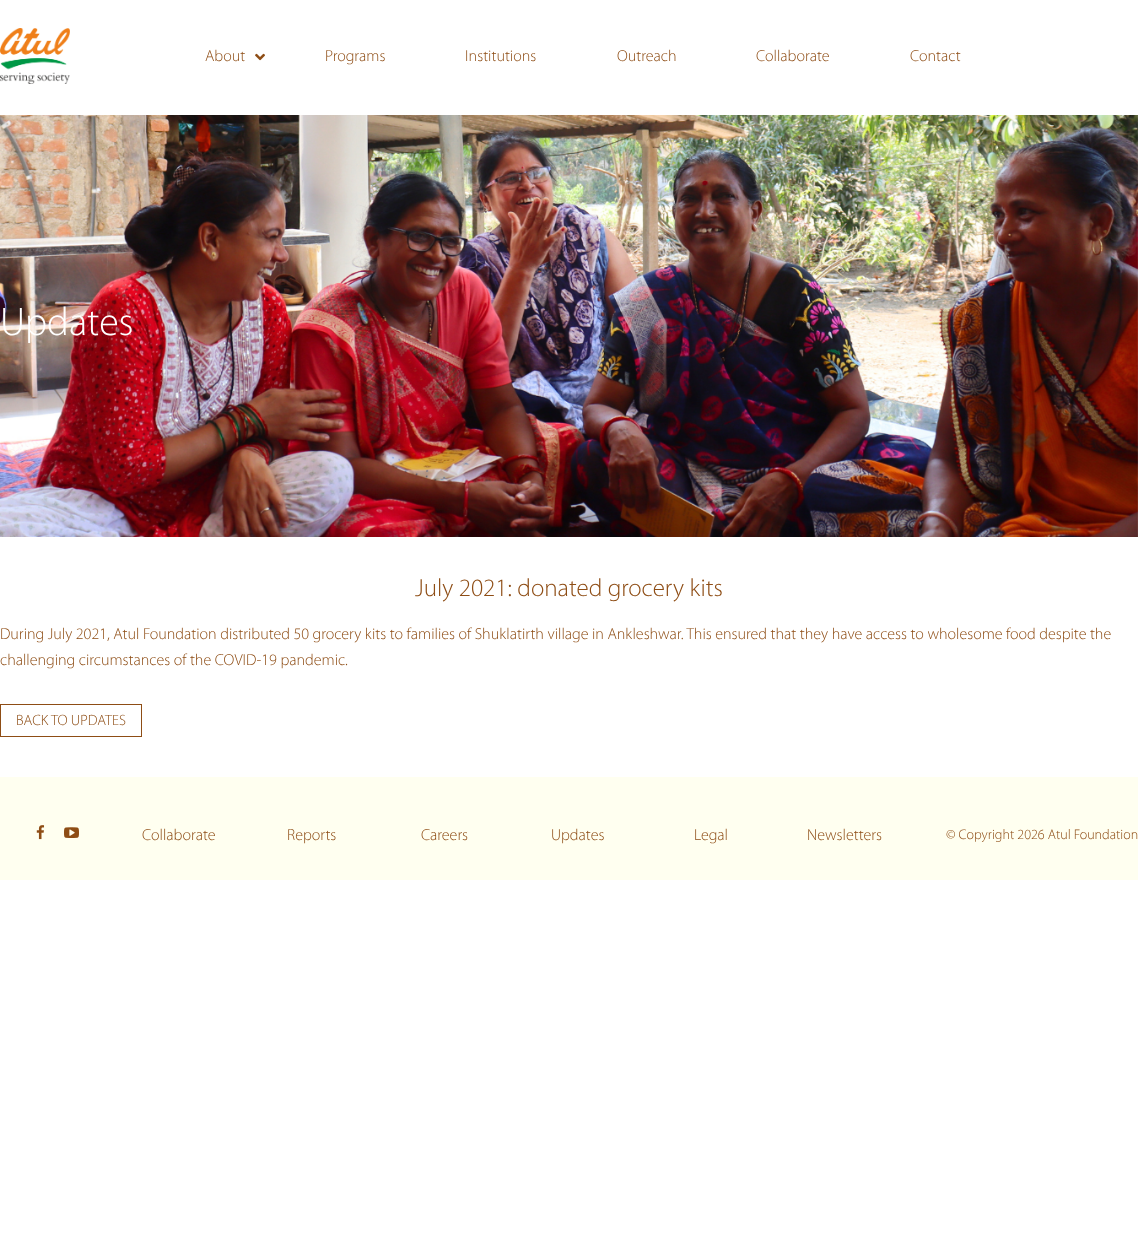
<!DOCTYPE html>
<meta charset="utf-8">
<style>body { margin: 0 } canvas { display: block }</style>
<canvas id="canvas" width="1138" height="1254"></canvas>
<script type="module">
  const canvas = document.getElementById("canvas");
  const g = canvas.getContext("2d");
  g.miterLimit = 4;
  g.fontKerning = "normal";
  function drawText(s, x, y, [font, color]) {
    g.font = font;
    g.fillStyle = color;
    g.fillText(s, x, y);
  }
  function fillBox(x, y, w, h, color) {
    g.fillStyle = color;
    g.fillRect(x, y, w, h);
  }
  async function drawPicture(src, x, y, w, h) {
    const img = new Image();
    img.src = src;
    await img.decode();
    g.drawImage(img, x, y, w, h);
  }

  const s1 = ["300 16px Myriad", "#8E4D15"];
  const s2 = ["300 40px Myriad", "#FFFFFF"];
  const s3 = ["300 25px Myriad", "#8E4D15"];
  const s4 = ["300 15px Myriad", "#8E4D15"];
  const s5 = ["300 14px Myriad", "#8E4D15"];

  fillBox(0, 0, 1138, 1254, "#FFFFFF");
  await drawPicture("pic1.png", 0, 28, 70, 56);
  drawText("About", 205, 61, s1);
  await drawPicture("pic2.png", 255, 53, 10, 8);
  drawText("Programs", 325, 61, s1);
  drawText("Institutions", 465, 61, s1);
  drawText("Outreach", 617, 61, s1);
  drawText("Collaborate", 756, 61, s1);
  drawText("Contact", 910, 61, s1);
  await drawPicture("pic3.png", 0, 115, 1138, 422);
  drawText("Updates", 0, 335, s2);
  drawText("July 2021: donated grocery kits", 415, 596, s3);
  drawText("During July 2021, Atul Foundation distributed 50 grocery kits to families of Shuklatirth village in Ankleshwar. This ensured that they have access to wholesome food despite the", 0, 639, s1);
  drawText("challenging circumstances of the COVID-19 pandemic.", 0, 665, s1);
  g.strokeStyle = "#8E4D15";
  g.strokeRect(0.5, 704.5, 141, 32);
  drawText("BACK TO UPDATES", 16, 725, s4);
  fillBox(0, 777, 1138, 103, "#FFFFF0");
  await drawPicture("pic4.png", 36, 825, 9, 15);
  await drawPicture("pic5.png", 64, 827, 15, 11);
  drawText("Collaborate", 142, 840, s1);
  drawText("Reports", 287, 840, s1);
  drawText("Careers", 421, 840, s1);
  drawText("Updates", 551, 840, s1);
  drawText("Legal", 694, 840, s1);
  drawText("Newsletters", 807, 840, s1);
  drawText("© Copyright 2026 Atul Foundation", 946, 839, s5);
</script>
